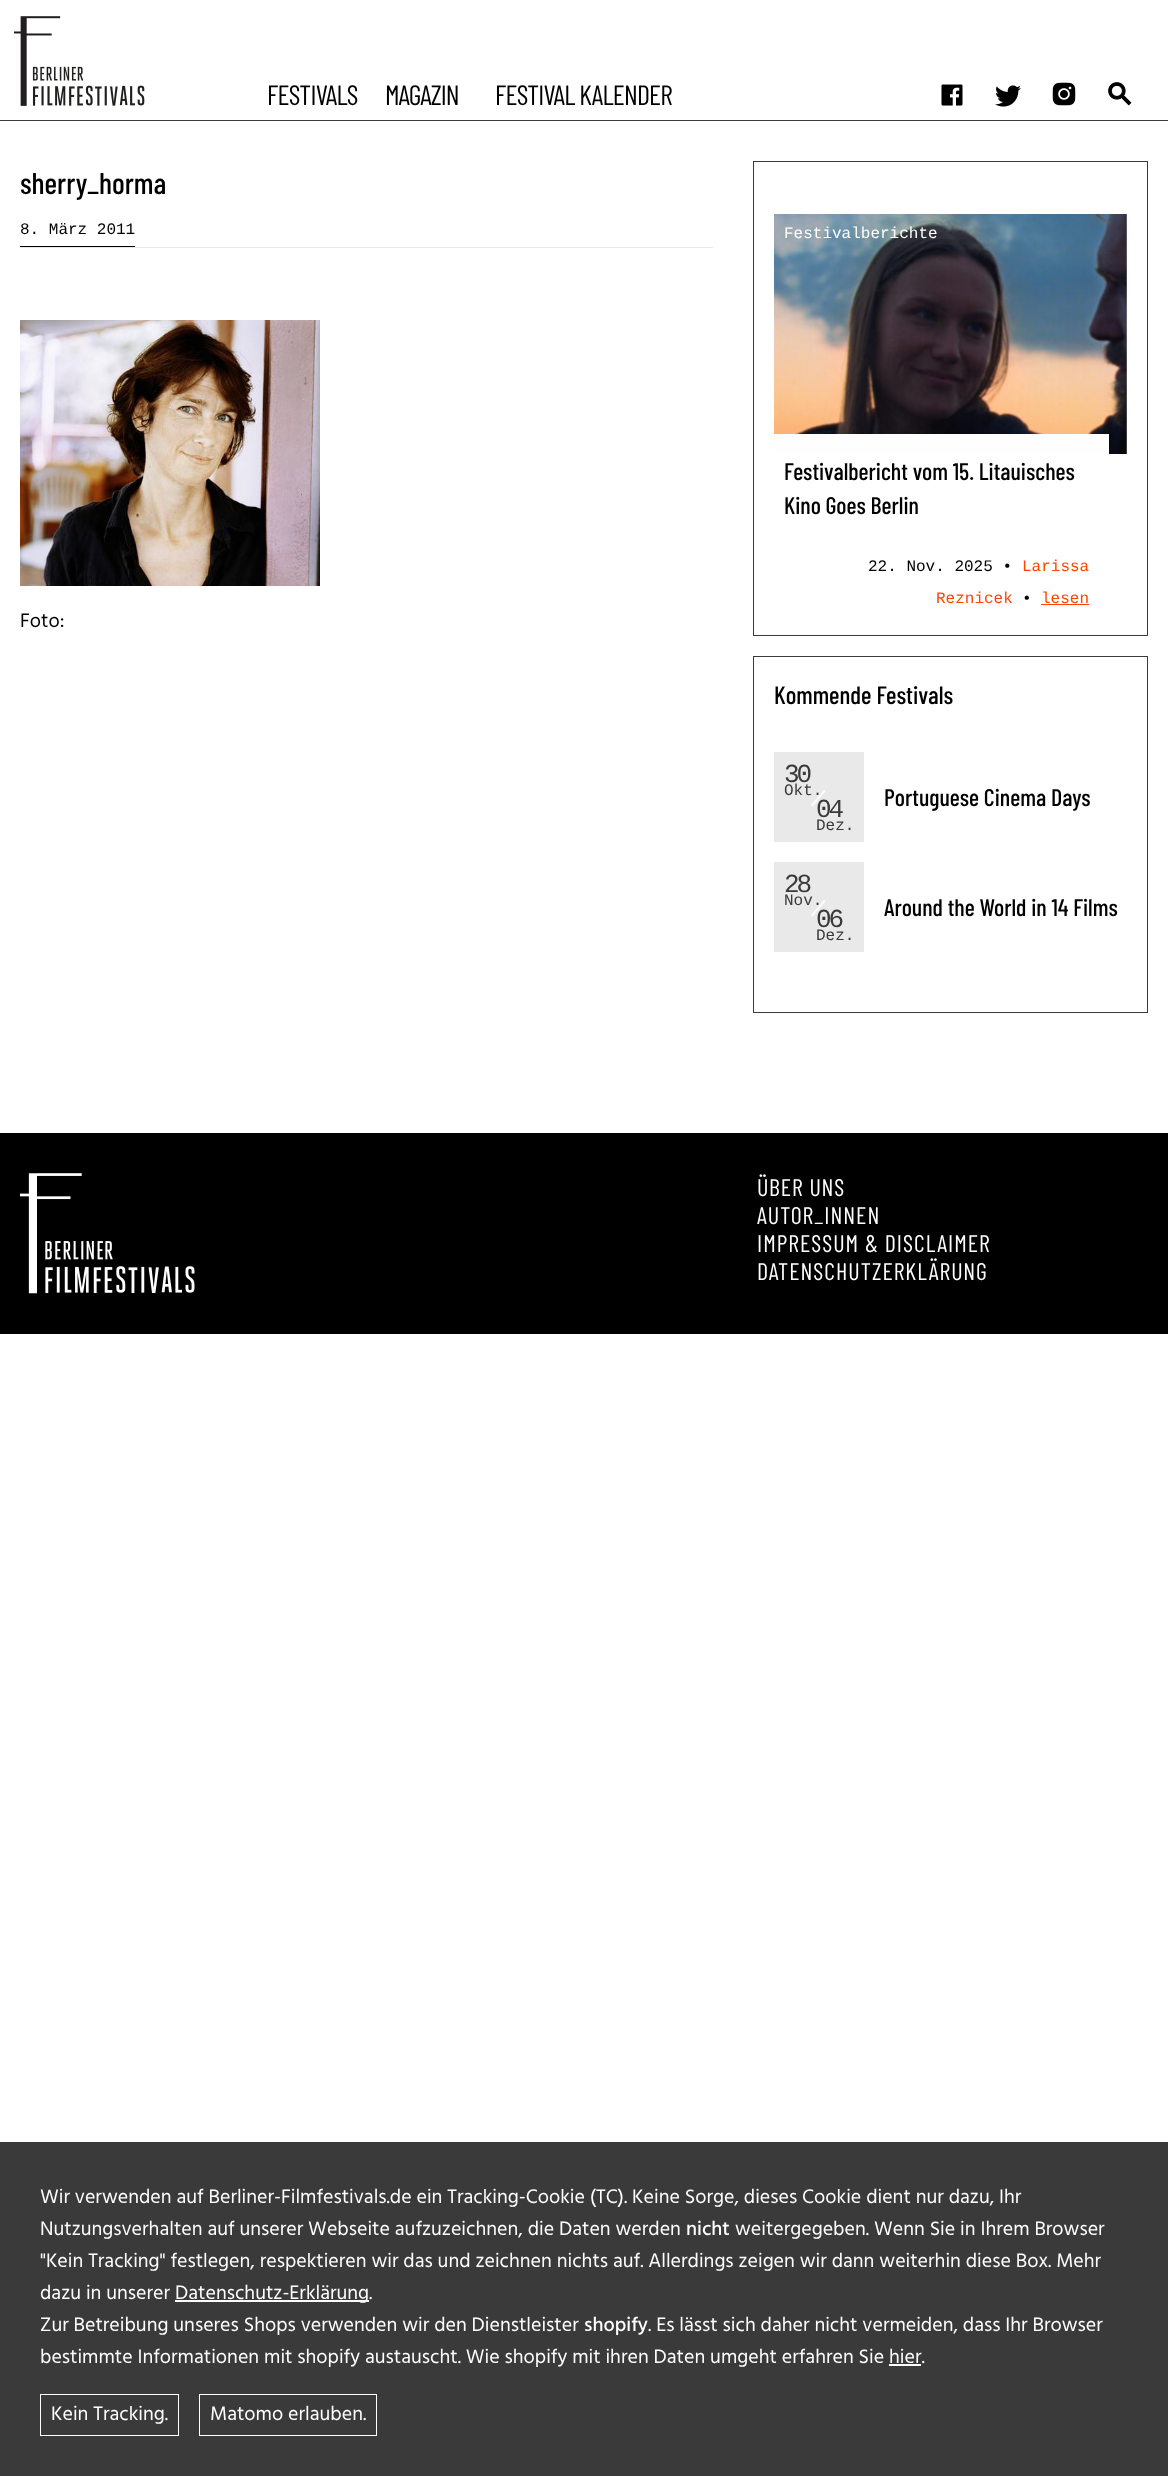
<!DOCTYPE html>
<meta charset="utf-8">
<style>body { margin: 0 } canvas { display: block }</style>
<canvas id="canvas" width="1168" height="2476"></canvas>
<script type="module">
  const canvas = document.getElementById("canvas");
  const g = canvas.getContext("2d");
  g.miterLimit = 4;
  g.fontKerning = "normal";
  function drawText(s, x, y, [font, color]) {
    g.font = font;
    g.fillStyle = color;
    g.fillText(s, x, y);
  }
  function fillBox(x, y, w, h, color) {
    g.fillStyle = color;
    g.fillRect(x, y, w, h);
  }
  async function drawPicture(src, x, y, w, h) {
    const img = new Image();
    img.src = src;
    await img.decode();
    g.drawImage(img, x, y, w, h);
  }

  const s1 = ["28px Barlow Condensed", "#000000"];
  const s2 = ["500 30px Barlow Condensed", "#000000"];
  const s3 = ["16px Liberation Mono", "#000000"];
  const s4 = ["20px Hind", "#000000"];
  const s5 = ["16px Liberation Mono", "#FEFEFE"];
  const s6 = ["500 24px Barlow Condensed", "#000000"];
  const s7 = ["16px Liberation Mono", "#FF4500"];
  const s8 = ["500 25px Barlow Condensed", "#000000"];
  const s9 = ["26px Liberation Mono", "#3A3A3A"];
  const s10 = ["16px Liberation Mono", "#3A3A3A"];
  const s11 = ["24px Barlow Condensed", "#FEFEFE"];
  const s12 = ["20px Hind", "#FEFEFE"];
  const s13 = ["500 20px Hind", "#FEFEFE"];

  fillBox(0, 0, 1168, 2476, "#FFFFFF");
  fillBox(0, 120, 1168, 1, "#3A3A3A");
  await drawPicture("pic1.png", 14, 16, 131, 90);
  g.letterSpacing = "-0.75px";
  drawText("FESTIVALS", 267, 105, s1);
  g.letterSpacing = "-1px";
  drawText("MAGAZIN", 385, 105, s1);
  g.letterSpacing = "-0.8px";
  drawText("FESTIVAL KALENDER", 495, 105, s1);
  await drawPicture("pic2.png", 941, 84, 22, 22);
  await drawPicture("pic3.png", 995, 85, 26, 22);
  await drawPicture("pic4.png", 1052, 82, 24, 24);
  await drawPicture("pic5.png", 1108, 82, 24, 24);
  g.letterSpacing = "0px";
  drawText("sherry_horma", 20, 194, s2);
  fillBox(20, 247, 693, 1, "#E9E9E9");
  fillBox(20, 246, 115, 1, "#000000");
  drawText("8. März 2011", 20, 234, s3);
  await drawPicture("pic6.png", 20, 320, 300, 266);
  drawText("Foto:", 20, 627, s4);
  g.strokeStyle = "#3A3A3A";
  g.strokeRect(753.5, 161.5, 394, 474);
  await drawPicture("pic7.png", 774, 214, 353, 240);
  drawText("Festivalberichte", 784, 238, s5);
  fillBox(774, 434, 335, 20, "#FEFEFE");
  drawText("Festivalbericht vom 15. Litauisches", 784, 480, s6);
  drawText("Kino Goes Berlin", 784, 514, s6);
  drawText("22. Nov. 2025 •", 868, 571, s3);
  drawText("Larissa", 1022, 571, s7);
  drawText("Reznicek", 936, 603, s7);
  drawText("•", 1022, 603, s3);
  drawText("lesen", 1041, 603, s7);
  fillBox(1041, 604, 48, 1, "#FF4500");
  g.strokeRect(753.5, 656.5, 394, 356);
  drawText("Kommende Festivals", 774, 704, s8);
  fillBox(774, 752, 90, 90, "#E9E9E9");
  g.letterSpacing = "-3px";
  drawText("30", 784, 782, s9);
  g.letterSpacing = "0px";
  drawText("Okt.", 784, 795, s10);
  g.letterSpacing = "-3px";
  drawText("04", 816, 817, s9);
  g.fillStyle = "#FEFEFE";
  g.beginPath();
  g.moveTo(811, 805);
  g.lineTo(824, 790);
  g.lineTo(825.5, 791);
  g.lineTo(812.5, 806.5);
  g.closePath();
  g.fill();
  g.letterSpacing = "0px";
  drawText("Dez.", 816, 830, s10);
  drawText("Portuguese Cinema Days", 884, 806, s6);
  fillBox(774, 862, 90, 90, "#E9E9E9");
  g.letterSpacing = "-3px";
  drawText("28", 784, 892, s9);
  g.letterSpacing = "0px";
  drawText("Nov.", 784, 905, s10);
  g.letterSpacing = "-3px";
  drawText("06", 816, 927, s9);
  g.fillStyle = "#FEFEFE";
  g.beginPath();
  g.moveTo(811, 915);
  g.lineTo(824, 900);
  g.lineTo(825.5, 901);
  g.lineTo(812.5, 916.5);
  g.closePath();
  g.fill();
  g.letterSpacing = "0px";
  drawText("Dez.", 816, 940, s10);
  drawText("Around the World in 14 Films", 884, 916, s6);
  fillBox(0, 1133, 1168, 201, "#000000");
  await drawPicture("pic8.png", 20, 1173, 175, 121);
  g.letterSpacing = "1px";
  drawText("ÜBER UNS", 757, 1196, s11);
  drawText("AUTOR_INNEN", 757, 1224, s11);
  drawText("IMPRESSUM & DISCLAIMER", 757, 1252, s11);
  drawText("DATENSCHUTZERKLÄRUNG", 757, 1280, s11);
  fillBox(0, 2142, 1168, 334, "#3A3A3A");
  g.letterSpacing = "0px";
  drawText("Wir verwenden auf Berliner-Filmfestivals.de ein Tracking-Cookie (TC). Keine Sorge, dieses Cookie dient nur dazu, Ihr", 40, 2203, s12);
  drawText("Nutzungsverhalten auf unserer Webseite aufzuzeichnen, die Daten werden", 40, 2235, s12);
  drawText("nicht", 686, 2235, s13);
  drawText("weitergegeben. Wenn Sie in Ihrem Browser", 735, 2235, s12);
  drawText("\"Kein Tracking\" festlegen, respektieren wir das und zeichnen nichts auf. Allerdings zeigen wir dann weiterhin diese Box. Mehr", 40, 2267, s12);
  drawText("dazu in unserer", 40, 2299, s12);
  fillBox(175, 2300, 194, 2, "#FEFEFE");
  drawText("Datenschutz-Erklärung.", 175, 2299, s12);
  drawText("Zur Betreibung unseres Shops verwenden wir den Dienstleister", 40, 2331, s12);
  drawText("shopify", 584, 2331, s13);
  drawText(". Es lässt sich daher nicht vermeiden, dass Ihr Browser", 648, 2331, s12);
  drawText("bestimmte Informationen mit shopify austauscht. Wie shopify mit ihren Daten umgeht erfahren Sie hier.", 40, 2363, s12);
  fillBox(889, 2364, 32, 2, "#FEFEFE");
  g.strokeStyle = "#FEFEFE";
  g.strokeRect(40.5, 2394.5, 138, 41);
  drawText("Kein Tracking.", 51, 2420, s12);
  g.strokeRect(199.5, 2394.5, 177, 41);
  drawText("Matomo erlauben.", 210, 2420, s12);
</script>
